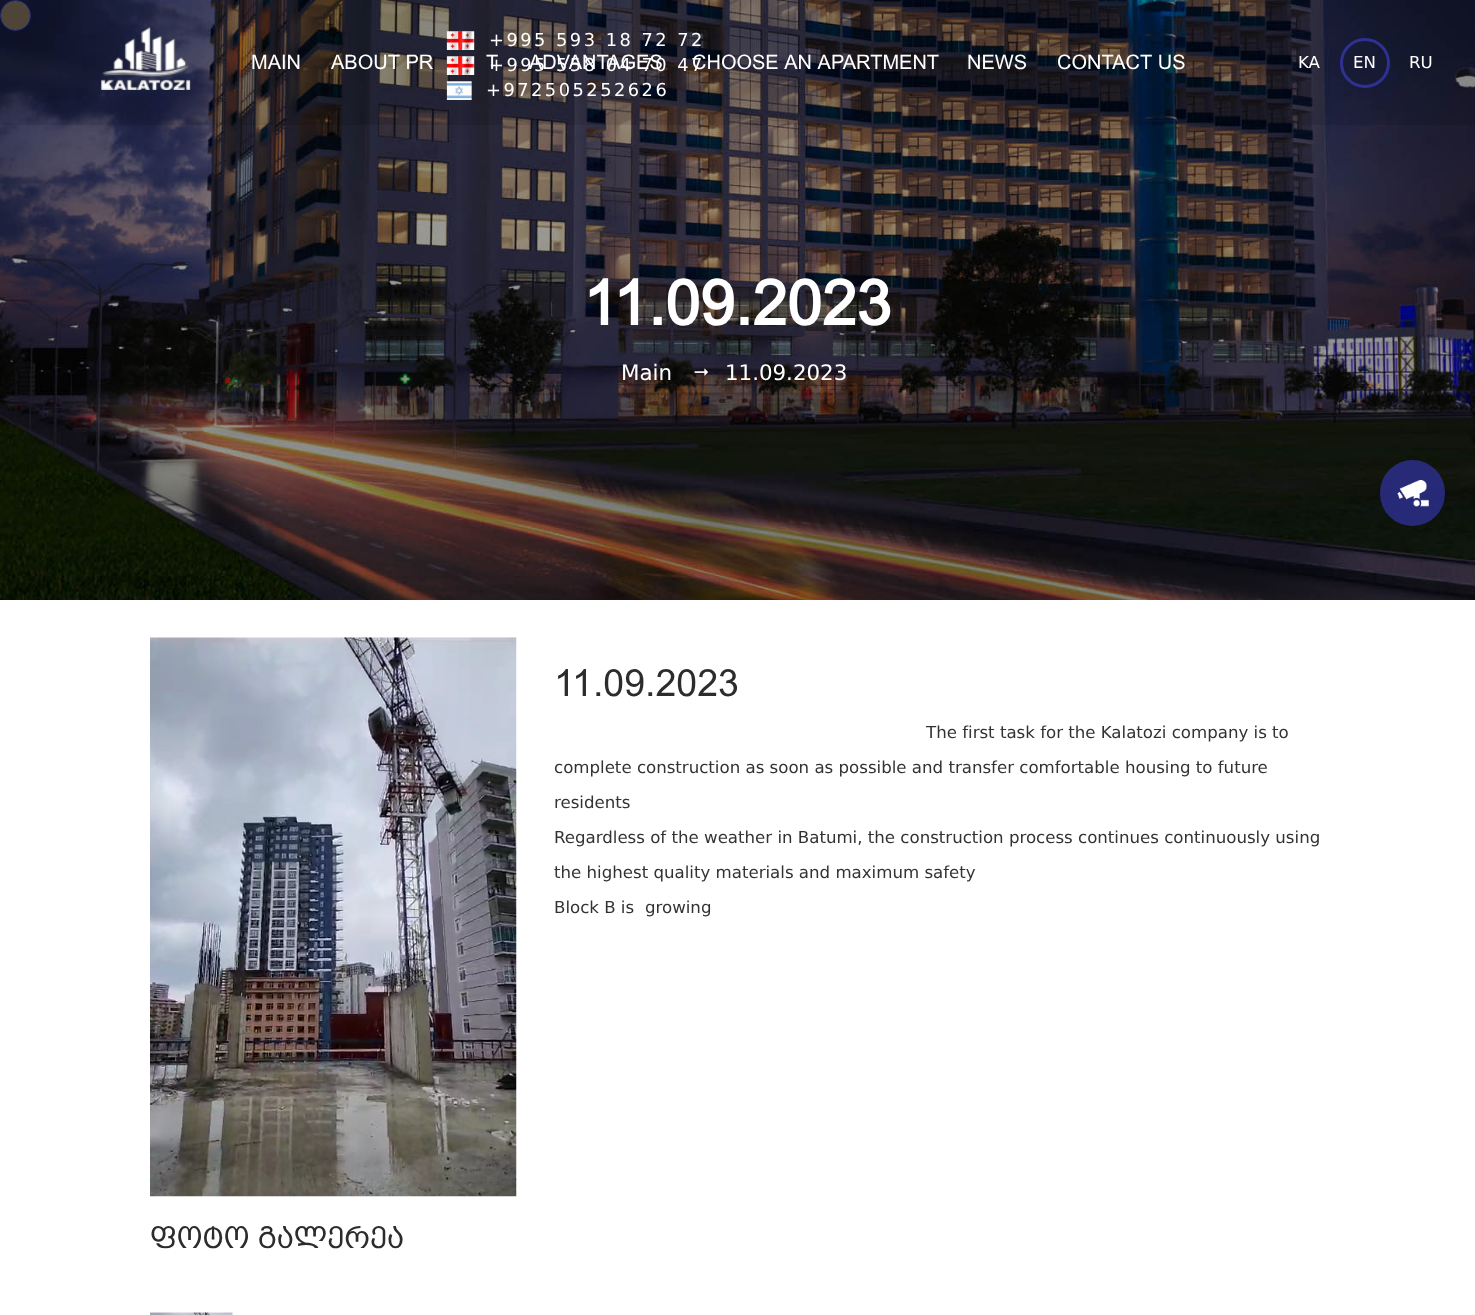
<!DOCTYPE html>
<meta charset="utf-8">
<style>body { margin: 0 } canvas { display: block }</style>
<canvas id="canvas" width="1475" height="1315"></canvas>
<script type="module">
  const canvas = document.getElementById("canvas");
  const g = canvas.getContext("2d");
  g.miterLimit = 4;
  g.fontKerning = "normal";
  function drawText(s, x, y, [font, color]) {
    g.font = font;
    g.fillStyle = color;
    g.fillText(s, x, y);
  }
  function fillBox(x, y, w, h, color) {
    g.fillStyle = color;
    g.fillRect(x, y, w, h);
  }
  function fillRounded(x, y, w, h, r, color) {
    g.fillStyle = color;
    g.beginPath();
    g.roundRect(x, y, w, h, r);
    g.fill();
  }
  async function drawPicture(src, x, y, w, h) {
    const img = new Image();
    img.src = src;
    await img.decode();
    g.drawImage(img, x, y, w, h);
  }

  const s1 = ["18.75px DejaVu Sans", "#FFFFFF"];
  const s2 = ["20px 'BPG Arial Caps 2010'", "#FFFFFF"];
  const s3 = ["17.5px DejaVu Sans", "#FFFFFF"];
  const s4 = ["bold 62.5px 'BPG Arial Caps 2010'", "#FFFFFF"];
  const s5 = ["22.5px DejaVu Sans", "#FFFFFF"];
  const s6 = ["37.5px 'BPG Arial Caps 2010'", "#2C2C2C"];
  const s7 = ["17.5px DejaVu Sans", "#333333"];
  const s8 = ["30px 'BPG Arial Caps 2010'", "#2C2C2C"];

  fillBox(0, 0, 1475, 1315, "#FFFFFF");
  await drawPicture("pic5.png", 0, 0, 1475, 600);
  fillBox(0, 0, 1475, 125, "rgba(0, 0, 0, 0.1)");
  g.fillStyle = "rgba(216, 177, 87, 0.32)";
  g.beginPath();
  g.arc(15.5, 15.5, 15, 0, Math.PI * 2);
  g.fill();
  g.strokeStyle = "#262977";
  g.stroke();
  await drawPicture("pic1.png", 101, 27, 90, 63);
  await drawPicture("pic2.png", 446, 31, 29, 19);
  g.letterSpacing = "2.5px";
  drawText("+995 593 18 72 72", 489, 46, s1);
  await drawPicture("pic3.png", 446, 56, 29, 19);
  g.letterSpacing = "0px";
  drawText("T", 486, 69, s2);
  drawText("ADVANTAGES", 529, 69, s2);
  drawText("CHOOSE AN APARTMENT", 692, 69, s2);
  g.letterSpacing = "2.5px";
  drawText("+995 558 04 70 47", 489, 71, s1);
  await drawPicture("pic4.png", 446, 81, 26, 19);
  drawText("+972505252626", 486, 96, s1);
  g.letterSpacing = "0px";
  drawText("MAIN", 251, 69, s2);
  drawText("ABOUT PR", 331, 69, s2);
  drawText("NEWS", 967, 69, s2);
  drawText("CONTACT US", 1057, 69, s2);
  drawText("KA", 1298, 68, s3);
  g.beginPath();
  g.arc(1365, 63, 23.5, 0, Math.PI * 2);
  g.strokeStyle = "#2E3094";
  g.lineWidth = 3;
  g.stroke();
  drawText("EN", 1353, 68, s3);
  drawText("RU", 1409, 68, s3);
  drawText("11.09.2023", 583, 325, s4);
  drawText("Main", 621, 380, s5);
  await drawPicture("pic6.png", 694, 368, 14, 8);
  drawText("11.09.2023", 725, 380, s5);
  drawText("11.09.2023", 554, 696, s6);
  drawText("The first task for the Kalatozi company is to", 926, 738, s7);
  drawText("complete construction as soon as possible and transfer comfortable housing to future", 554, 773, s7);
  drawText("residents", 554, 808, s7);
  drawText("Regardless of the weather in Batumi, the construction process continues continuously using", 554, 843, s7);
  drawText("the highest quality materials and maximum safety", 554, 878, s7);
  drawText("Block B is", 554, 913, s7);
  drawText("growing", 645, 913, s7);
  await drawPicture("pic7.png", 150, 637, 367, 560);
  drawText("ფოტო გალერეა", 150, 1248, s8);
  await drawPicture("pic8.png", 150, 1312, 83, 3);
  fillRounded(1380, 460, 65, 66, 32.5, "rgba(46, 48, 148, 0.79)");
  await drawPicture("pic9.png", 1397, 480, 32, 27);
</script>
